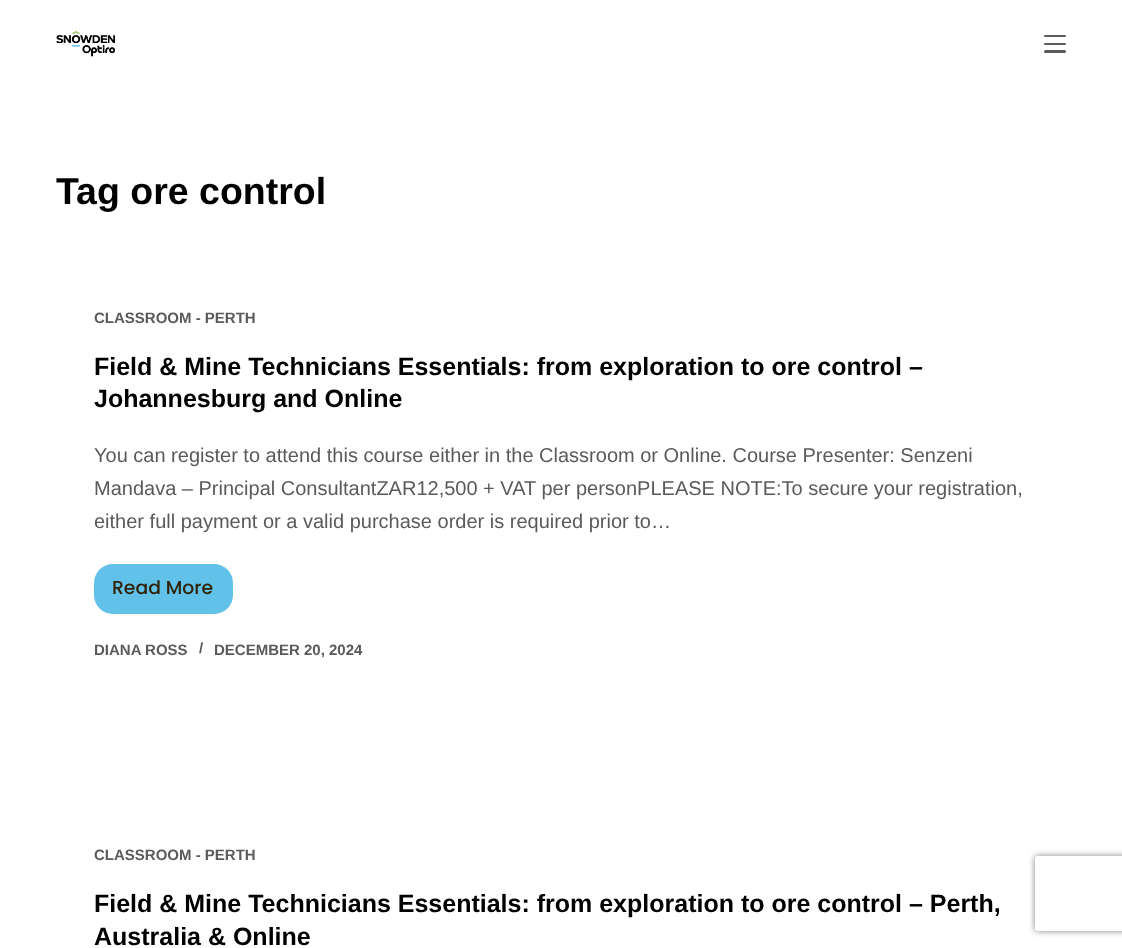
<!DOCTYPE html>
<meta charset="utf-8">
<style>body { margin: 0 } canvas { display: block }</style>
<canvas id="canvas" width="1122" height="948"></canvas>
<script type="module">
  const canvas = document.getElementById("canvas");
  const g = canvas.getContext("2d");
  g.miterLimit = 4;
  g.fontKerning = "normal";
  function drawText(s, x, y, [font, color]) {
    g.font = font;
    g.fillStyle = color;
    g.fillText(s, x, y);
  }
  function fillBox(x, y, w, h, color) {
    g.fillStyle = color;
    g.fillRect(x, y, w, h);
  }
  function fillRounded(x, y, w, h, r, color) {
    g.fillStyle = color;
    g.beginPath();
    g.roundRect(x, y, w, h, r);
    g.fill();
  }
  async function drawPicture(src, x, y, w, h) {
    const img = new Image();
    img.src = src;
    await img.decode();
    g.drawImage(img, x, y, w, h);
  }

  const s1 = ["bold 37.5px Liberation Sans", "#000000"];
  const s2 = ["bold 15px Liberation Sans", "#5A5A5A"];
  const s3 = ["bold 25px Liberation Sans", "#000000"];
  const s4 = ["20px Liberation Sans", "#5A5A5A"];
  const s5 = ["500 18.75px Poppins", "#2F2207"];

  fillBox(0, 0, 1122, 948, "#FFFFFF");
  await drawPicture("pic1.png", 56, 31, 59, 26);
  fillRounded(1044, 35, 22, 2, 1, "#5A5A5A");
  fillRounded(1044, 43, 22, 2, 1, "#5A5A5A");
  fillRounded(1044, 50, 22, 3, 1.5, "#5A5A5A");
  drawText("Tag ore control", 56, 204, s1);
  drawText("CLASSROOM - PERTH", 94, 323, s2);
  drawText("Field & Mine Technicians Essentials: from exploration to ore control –", 94, 375, s3);
  drawText("Johannesburg and Online", 94, 407, s3);
  drawText("You can register to attend this course either in the Classroom or Online. Course Presenter: Senzeni", 94, 462, s4);
  drawText("Mandava – Principal ConsultantZAR12,500 + VAT per personPLEASE NOTE:To secure your registration,", 94, 495, s4);
  drawText("either full payment or a valid purchase order is required prior to…", 94, 528, s4);
  fillRounded(94, 564, 139, 50, 19, "#61C1E9");
  drawText("Read More", 112, 594, s5);
  drawText("DIANA ROSS", 94, 655, s2);
  drawText("/", 199, 653, s2);
  drawText("DECEMBER 20, 2024", 214, 655, s2);
  drawText("CLASSROOM - PERTH", 94, 860, s2);
  drawText("Field & Mine Technicians Essentials: from exploration to ore control – Perth,", 94, 912, s3);
  drawText("Australia & Online", 94, 945, s3);
  g.save();
  g.beginPath();
  g.moveTo(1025, 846);
  g.lineTo(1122, 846);
  g.lineTo(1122, 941);
  g.lineTo(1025, 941);
  g.closePath();
  g.moveTo(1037.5, 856);
  g.lineTo(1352.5, 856);
  g.bezierCurveTo(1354, 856, 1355, 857, 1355, 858.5);
  g.lineTo(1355, 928.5);
  g.bezierCurveTo(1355, 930, 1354, 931, 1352.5, 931);
  g.lineTo(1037.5, 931);
  g.bezierCurveTo(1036, 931, 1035, 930, 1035, 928.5);
  g.lineTo(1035, 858.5);
  g.bezierCurveTo(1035, 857, 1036, 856, 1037.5, 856);
  g.closePath();
  g.clip("evenodd");
  g.fillStyle = "#808080";
  g.filter = "blur(3px)";
  g.beginPath();
  g.roundRect(1035, 856, 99, 75, 2.5);
  g.fill();
  g.filter = "none";
  g.restore();
</script>
